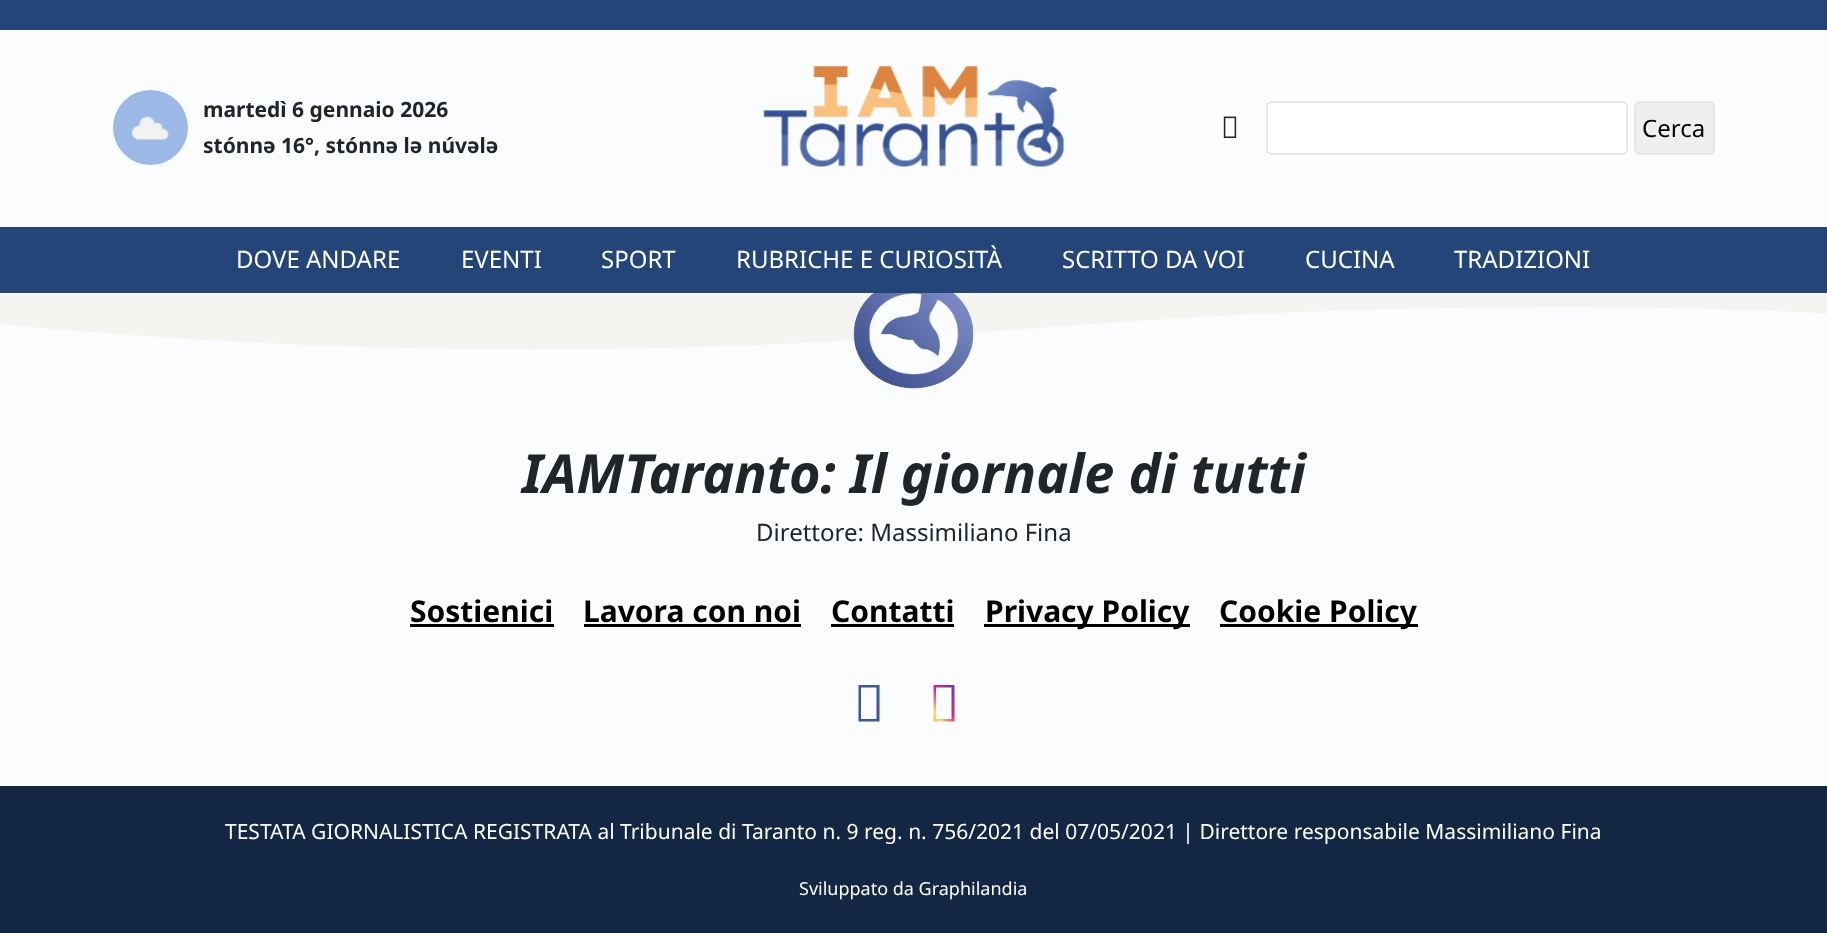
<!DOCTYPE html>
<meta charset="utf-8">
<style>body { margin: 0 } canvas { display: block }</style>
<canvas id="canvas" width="1827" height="933"></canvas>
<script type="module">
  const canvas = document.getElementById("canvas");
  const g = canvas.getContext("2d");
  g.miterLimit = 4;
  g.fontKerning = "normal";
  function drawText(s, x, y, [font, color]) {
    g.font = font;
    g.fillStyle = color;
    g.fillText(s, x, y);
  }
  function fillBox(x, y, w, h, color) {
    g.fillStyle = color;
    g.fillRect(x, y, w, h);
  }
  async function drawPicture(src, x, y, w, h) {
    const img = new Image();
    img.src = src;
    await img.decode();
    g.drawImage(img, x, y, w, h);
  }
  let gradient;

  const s1 = ["bold 21px Noto Sans", "#212529"];
  const s2 = ["24px Noto Sans", "#000000"];
  const s3 = ["24px Noto Sans", "#FFFFFF"];
  const s4 = ["italic bold 54px Noto Sans", "#212529"];
  const s5 = ["24px Noto Sans", "#212529"];
  const s6 = ["bold 30px Noto Sans", "#000000"];
  const s7 = ["21px Noto Sans", "#FFFFFF"];
  const s8 = ["18px Noto Sans", "#FFFFFF"];

  fillBox(0, 0, 1827, 933, "#F4F4F0");
  fillBox(0, 30, 1827, 197, "#FAFCFD");
  fillBox(0, 0, 1827, 30, "#234578");
  g.fillStyle = "#9AB9E7";
  g.beginPath();
  g.arc(150.5, 127.5, 37.5, 0, Math.PI * 2);
  g.fill();
  await drawPicture("pic1.png", 131, 116, 38, 24);
  drawText("martedì 6 gennaio 2026", 203, 117, s1);
  drawText("stónnə 16°, stónnə lə núvələ", 203, 153, s1);
  await drawPicture("pic2.png", 763, 66, 301, 101);
  await drawPicture("pic3.png", 1223, 116, 14, 22);
  g.fillStyle = "#FFFFFF";
  g.beginPath();
  g.roundRect(1267, 102, 360, 52, 5);
  g.fill();
  g.strokeStyle = "#E5E5E5";
  g.lineWidth = 2;
  g.stroke();
  g.fillStyle = "#EFEFEF";
  g.beginPath();
  g.roundRect(1635, 102, 79, 52, 5);
  g.fill();
  g.stroke();
  drawText("Cerca", 1642, 137, s2);
  fillBox(0, 307, 1827, 479, "#FAFCFD");
  g.fillStyle = "#F4F4F0";
  g.beginPath();
  g.moveTo(803, 343);
  g.bezierCurveTo(948, 336, 1088, 323, 1233, 315);
  g.bezierCurveTo(1439, 305, 1653, 304, 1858, 315);
  g.bezierCurveTo(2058, 326, 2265, 353, 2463, 366);
  g.bezierCurveTo(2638, 378, 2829, 383, 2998, 368);
  g.lineTo(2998, 306);
  g.lineTo(0, 306);
  g.lineTo(0, 324);
  g.bezierCurveTo(256, 349, 534, 356, 803, 343);
  g.closePath();
  g.fill();
  g.fillStyle = "#FAFCFD";
  g.beginPath();
  g.ellipse(913.5, 334, 60, 55, 0, 0, Math.PI * 2);
  g.fill();
  fillBox(0, 227, 1827, 66, "#234578");
  drawText("DOVE ANDARE", 236, 268, s3);
  drawText("EVENTI", 461, 268, s3);
  drawText("SPORT", 601, 268, s3);
  drawText("RUBRICHE E CURIOSITÀ", 736, 268, s3);
  drawText("SCRITTO DA VOI", 1062, 268, s3);
  drawText("CUCINA", 1305, 268, s3);
  drawText("TRADIZIONI", 1454, 268, s3);
  await drawPicture("pic4.png", 853, 293, 121, 96);
  drawText("IAMTaranto: Il giornale di tutti", 522, 493, s4);
  drawText("Direttore: Massimiliano Fina", 756, 541, s5);
  drawText("Sostienici", 410, 622, s6);
  fillBox(410, 624, 144, 3, "#000000");
  drawText("Lavora con noi", 583, 622, s6);
  fillBox(584, 624, 217, 3, "#000000");
  drawText("Contatti", 831, 622, s6);
  fillBox(831, 624, 123, 3, "#000000");
  fillBox(984, 624, 206, 3, "#000000");
  drawText("Privacy Policy", 985, 622, s6);
  fillBox(1220, 624, 198, 3, "#000000");
  drawText("Cookie Policy", 1219, 622, s6);
  g.fillStyle = "#3B5998";
  g.beginPath();
  g.moveTo(858.5, 721.5);
  g.lineTo(858.5, 685);
  g.lineTo(879.5, 685);
  g.lineTo(879.5, 721.5);
  g.closePath();
  g.moveTo(861, 719);
  g.lineTo(876.5, 719);
  g.lineTo(876.5, 687.5);
  g.lineTo(861, 687.5);
  g.closePath();
  g.fill();
  gradient = g.createLinearGradient(924, 720, 978, 683);
  gradient.addColorStop(0, "#F58529");
  gradient.addColorStop(0.2, "#FEDA77");
  gradient.addColorStop(0.4, "#DD2A7B");
  gradient.addColorStop(0.6, "#8134AF");
  gradient.addColorStop(0.8, "#515BD4");
  g.fillStyle = gradient;
  g.beginPath();
  g.moveTo(933.5, 721.5);
  g.lineTo(933.5, 685);
  g.lineTo(954.5, 685);
  g.lineTo(954.5, 721.5);
  g.closePath();
  g.moveTo(936, 719);
  g.lineTo(951.5, 719);
  g.lineTo(951.5, 687.5);
  g.lineTo(936, 687.5);
  g.closePath();
  g.fill();
  fillBox(0, 786, 1827, 147, "#132643");
  drawText("TESTATA GIORNALISTICA REGISTRATA al Tribunale di Taranto n. 9 reg. n. 756/2021 del 07/05/2021 | Direttore responsabile Massimiliano Fina", 225, 839, s7);
  drawText("Sviluppato da Graphilandia", 799, 895, s8);
</script>
